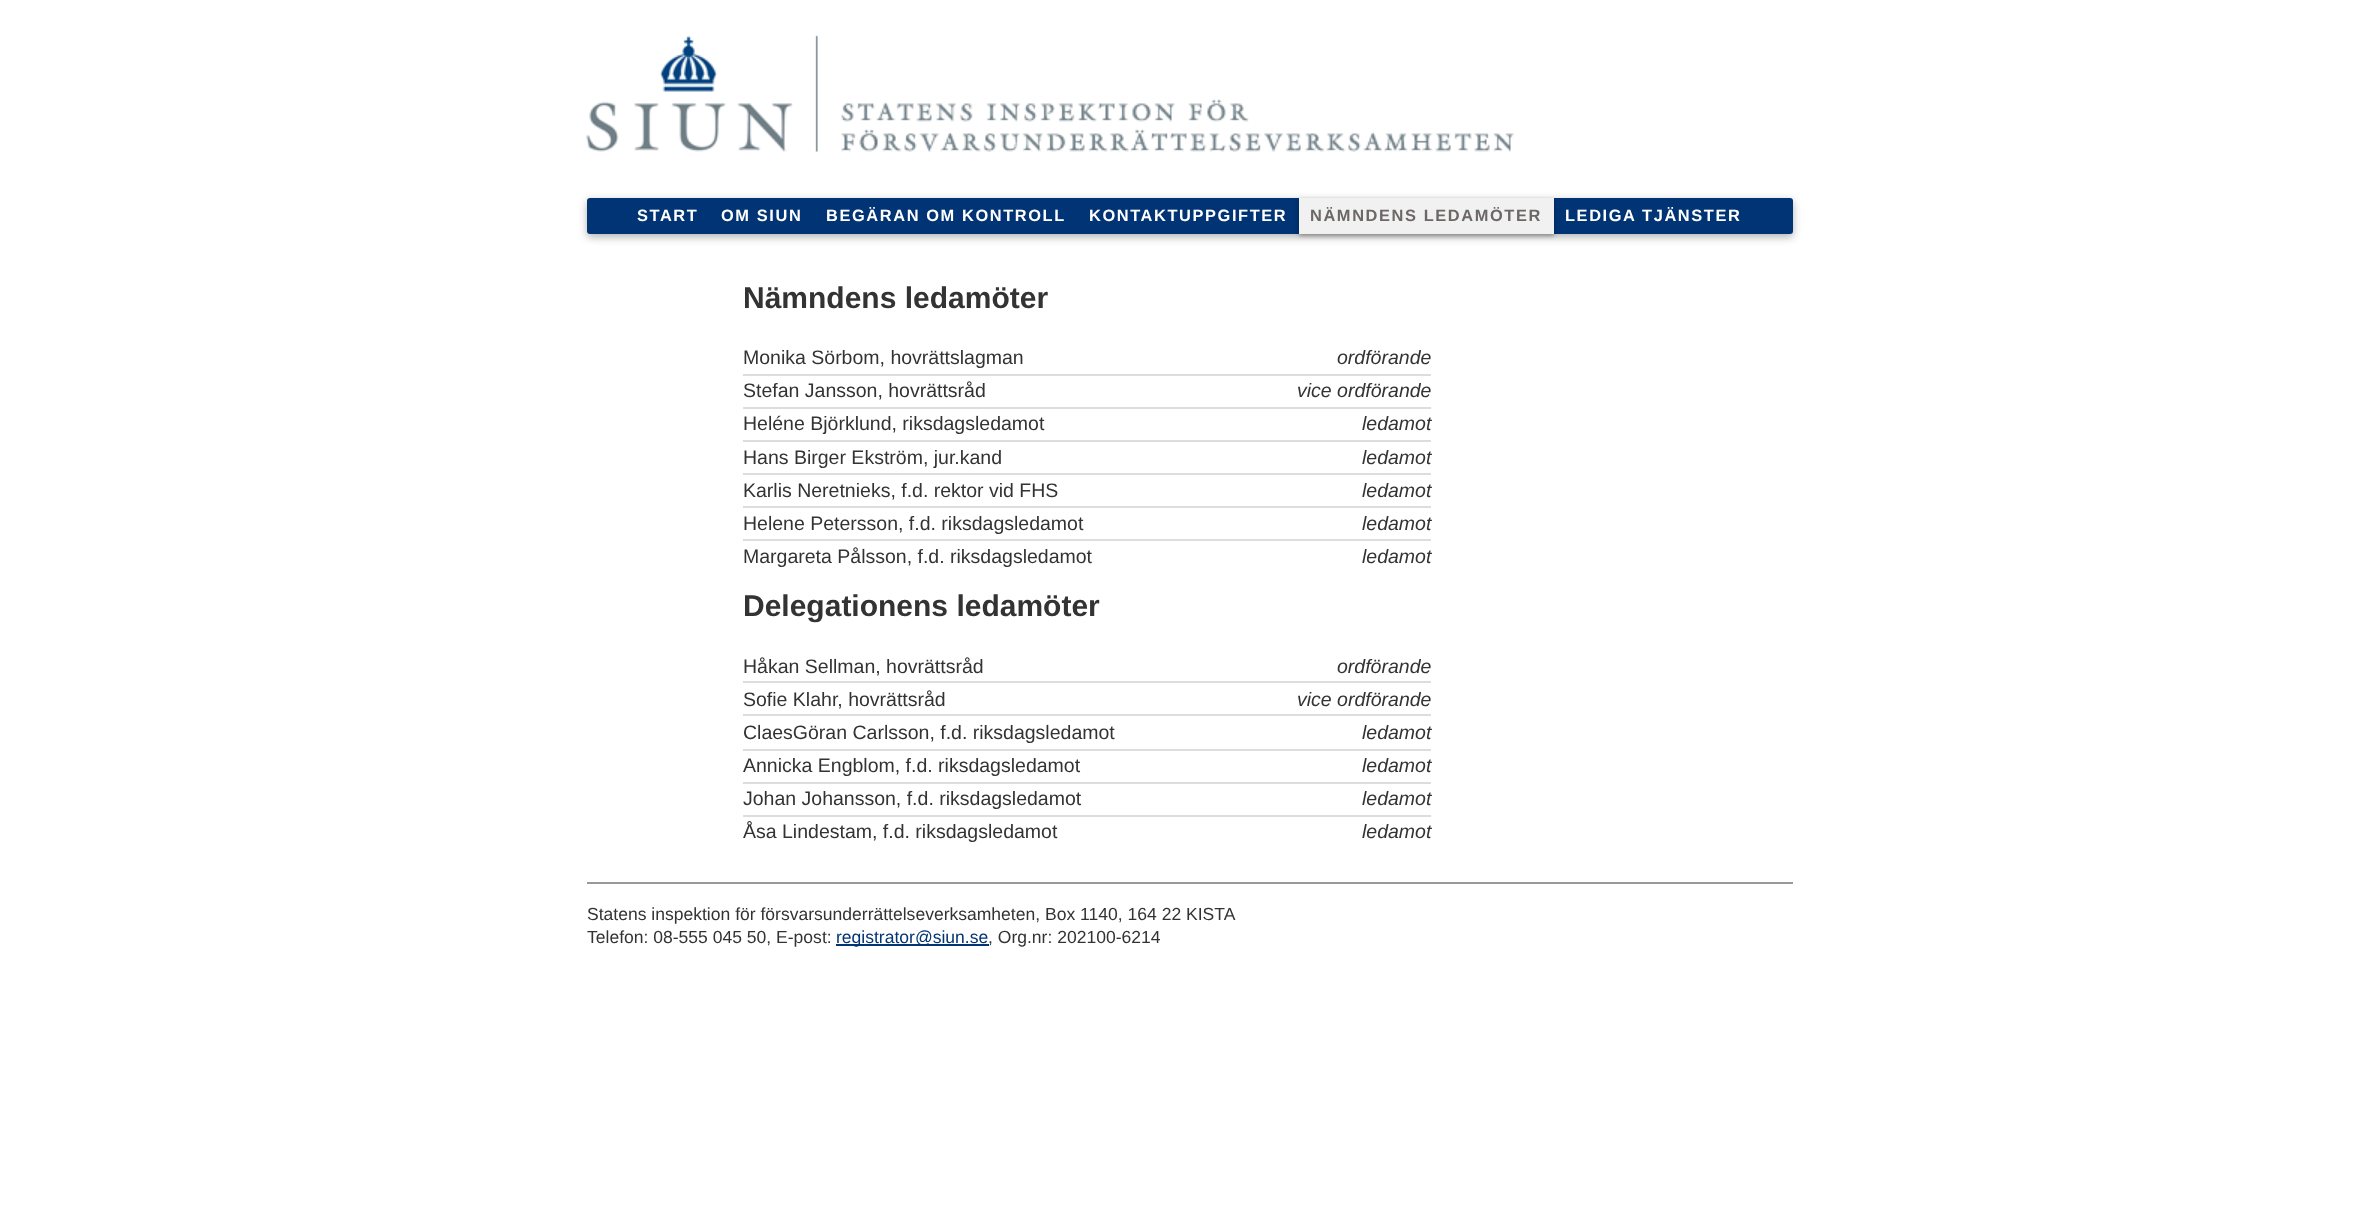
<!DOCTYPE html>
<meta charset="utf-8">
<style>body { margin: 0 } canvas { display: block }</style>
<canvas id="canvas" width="2379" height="1215"></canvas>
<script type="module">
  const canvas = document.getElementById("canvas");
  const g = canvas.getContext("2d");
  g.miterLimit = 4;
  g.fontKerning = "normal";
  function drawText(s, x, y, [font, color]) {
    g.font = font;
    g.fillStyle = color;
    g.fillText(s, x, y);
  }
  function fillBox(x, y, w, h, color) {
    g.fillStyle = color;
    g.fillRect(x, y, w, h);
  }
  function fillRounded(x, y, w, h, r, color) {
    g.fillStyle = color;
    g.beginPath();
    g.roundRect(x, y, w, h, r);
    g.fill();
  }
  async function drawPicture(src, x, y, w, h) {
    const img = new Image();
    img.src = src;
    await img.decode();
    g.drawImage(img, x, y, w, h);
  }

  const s1 = ["bold 16.4px Liberation Sans", "#FFFFFF"];
  const s2 = ["bold 16.4px Liberation Sans", "#6D6767"];
  const s3 = ["bold 30px Liberation Sans", "#333333"];
  const s4 = ["19.5px Liberation Sans", "#333333"];
  const s5 = ["italic 19.5px Liberation Sans", "#333333"];
  const s6 = ["17.55px Liberation Sans", "#333333"];
  const s7 = ["17.55px Liberation Sans", "#003474"];

  fillBox(0, 0, 2379, 1215, "#FFFFFF");
  await drawPicture("pic1.png", 586, 35, 928, 117);
  g.fillStyle = "rgba(0, 0, 0, 0.3)";
  g.filter = "blur(4px)";
  g.beginPath();
  g.roundRect(587, 201, 1206, 36, 3);
  g.fill();
  g.filter = "none";
  fillRounded(587, 198, 1206, 36, 3, "#003474");
  g.letterSpacing = "1.6px";
  drawText("START", 637, 221, s1);
  drawText("OM SIUN", 721, 221, s1);
  drawText("BEGÄRAN OM KONTROLL", 826, 221, s1);
  drawText("KONTAKTUPPGIFTER", 1089, 221, s1);
  g.fillStyle = "rgba(0, 0, 0, 0.3)";
  g.filter = "blur(2px)";
  g.beginPath();
  g.rect(1299, 200, 255, 36);
  g.fill();
  g.filter = "none";
  fillBox(1299, 198, 255, 36, "#F1F1F1");
  drawText("NÄMNDENS LEDAMÖTER", 1310, 221, s2);
  drawText("LEDIGA TJÄNSTER", 1565, 221, s1);
  g.letterSpacing = "0px";
  drawText("Nämndens ledamöter", 743, 308, s3);
  fillBox(743, 374, 688, 2, "#DDDDDD");
  drawText("Monika Sörbom, hovrättslagman", 743, 364, s4);
  drawText("ordförande", 1337, 364, s5);
  fillBox(743, 407, 688, 2, "#DDDDDD");
  drawText("Stefan Jansson, hovrättsråd", 743, 397, s4);
  drawText("vice ordförande", 1297, 397, s5);
  fillBox(743, 440, 688, 2, "#DDDDDD");
  drawText("Heléne Björklund, riksdagsledamot", 743, 430, s4);
  drawText("ledamot", 1362, 430, s5);
  fillBox(743, 473, 688, 2, "#DDDDDD");
  drawText("Hans Birger Ekström, jur.kand", 743, 464, s4);
  drawText("ledamot", 1362, 464, s5);
  fillBox(743, 506, 688, 2, "#DDDDDD");
  drawText("Karlis Neretnieks, f.d. rektor vid FHS", 743, 497, s4);
  drawText("ledamot", 1362, 497, s5);
  fillBox(743, 539, 688, 2, "#DDDDDD");
  drawText("Helene Petersson, f.d. riksdagsledamot", 743, 530, s4);
  drawText("ledamot", 1362, 530, s5);
  drawText("Margareta Pålsson, f.d. riksdagsledamot", 743, 563, s4);
  drawText("ledamot", 1362, 563, s5);
  drawText("Delegationens ledamöter", 743, 616, s3);
  fillBox(743, 681, 688, 2, "#DDDDDD");
  drawText("Håkan Sellman, hovrättsråd", 743, 673, s4);
  drawText("ordförande", 1337, 673, s5);
  fillBox(743, 714, 688, 2, "#DDDDDD");
  drawText("Sofie Klahr, hovrättsråd", 743, 706, s4);
  drawText("vice ordförande", 1297, 706, s5);
  fillBox(743, 749, 688, 2, "#DDDDDD");
  drawText("ClaesGöran Carlsson, f.d. riksdagsledamot", 743, 739, s4);
  drawText("ledamot", 1362, 739, s5);
  fillBox(743, 782, 688, 2, "#DDDDDD");
  drawText("Annicka Engblom, f.d. riksdagsledamot", 743, 772, s4);
  drawText("ledamot", 1362, 772, s5);
  fillBox(743, 815, 688, 2, "#DDDDDD");
  drawText("Johan Johansson, f.d. riksdagsledamot", 743, 805, s4);
  drawText("ledamot", 1362, 805, s5);
  drawText("Åsa Lindestam, f.d. riksdagsledamot", 743, 838, s4);
  drawText("ledamot", 1362, 838, s5);
  fillBox(587, 882, 1206, 2, "#999999");
  drawText("Statens inspektion för försvarsunderrättelseverksamheten, Box 1140, 164 22 KISTA", 587, 920, s6);
  drawText("Telefon: 08-555 045 50, E-post:", 587, 943, s6);
  fillBox(836, 944, 153, 2, "#003474");
  drawText("registrator@siun.se", 836, 943, s7);
  drawText(", Org.nr: 202100-6214", 988, 943, s6);
</script>
